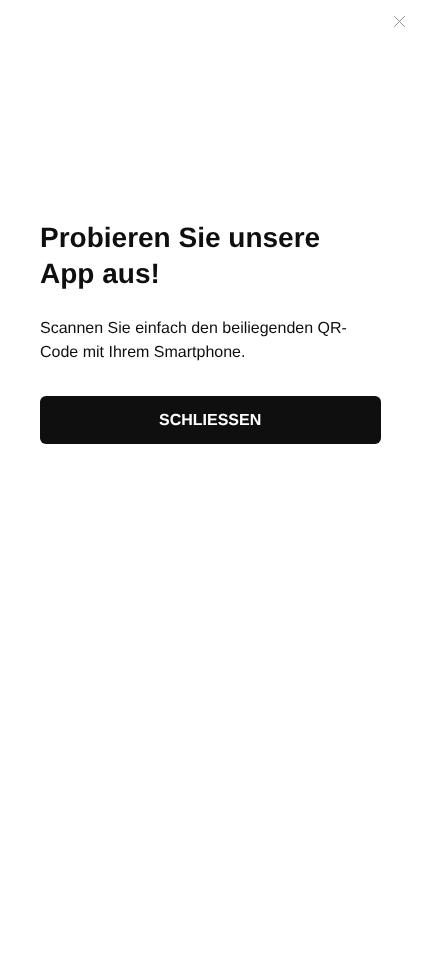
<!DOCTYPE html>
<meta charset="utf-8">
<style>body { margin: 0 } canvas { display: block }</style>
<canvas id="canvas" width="421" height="957"></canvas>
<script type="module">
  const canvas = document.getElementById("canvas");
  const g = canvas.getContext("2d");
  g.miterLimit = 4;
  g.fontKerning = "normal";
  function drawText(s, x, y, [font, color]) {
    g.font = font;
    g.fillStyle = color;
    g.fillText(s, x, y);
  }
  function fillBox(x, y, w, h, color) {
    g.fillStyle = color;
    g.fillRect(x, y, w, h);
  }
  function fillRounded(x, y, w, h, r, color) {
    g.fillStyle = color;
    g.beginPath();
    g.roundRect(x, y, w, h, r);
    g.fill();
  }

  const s1 = ["bold 28px Liberation Sans", "#0F0F0F"];
  const s2 = ["16px Liberation Sans", "#0F0F0F"];
  const s3 = ["bold 16px Liberation Sans", "#FFFFFF"];

  fillBox(0, 0, 421, 957, "#FFFFFF");
  g.beginPath();
  g.moveTo(394.5, 16.5);
  g.lineTo(404.5, 26.5);
  g.moveTo(404.5, 16.5);
  g.lineTo(394.5, 26.5);
  g.strokeStyle = "#878787";
  g.lineWidth = 0.9;
  g.lineCap = "round";
  g.lineJoin = "round";
  g.stroke();
  drawText("Probieren Sie unsere", 40, 247, s1);
  drawText("App aus!", 40, 283, s1);
  drawText("Scannen Sie einfach den beiliegenden QR-", 40, 333, s2);
  drawText("Code mit Ihrem Smartphone.", 40, 357, s2);
  fillRounded(40, 396, 341, 48, 6, "#0F0F0F");
  drawText("SCHLIESSEN", 159, 425, s3);
</script>
